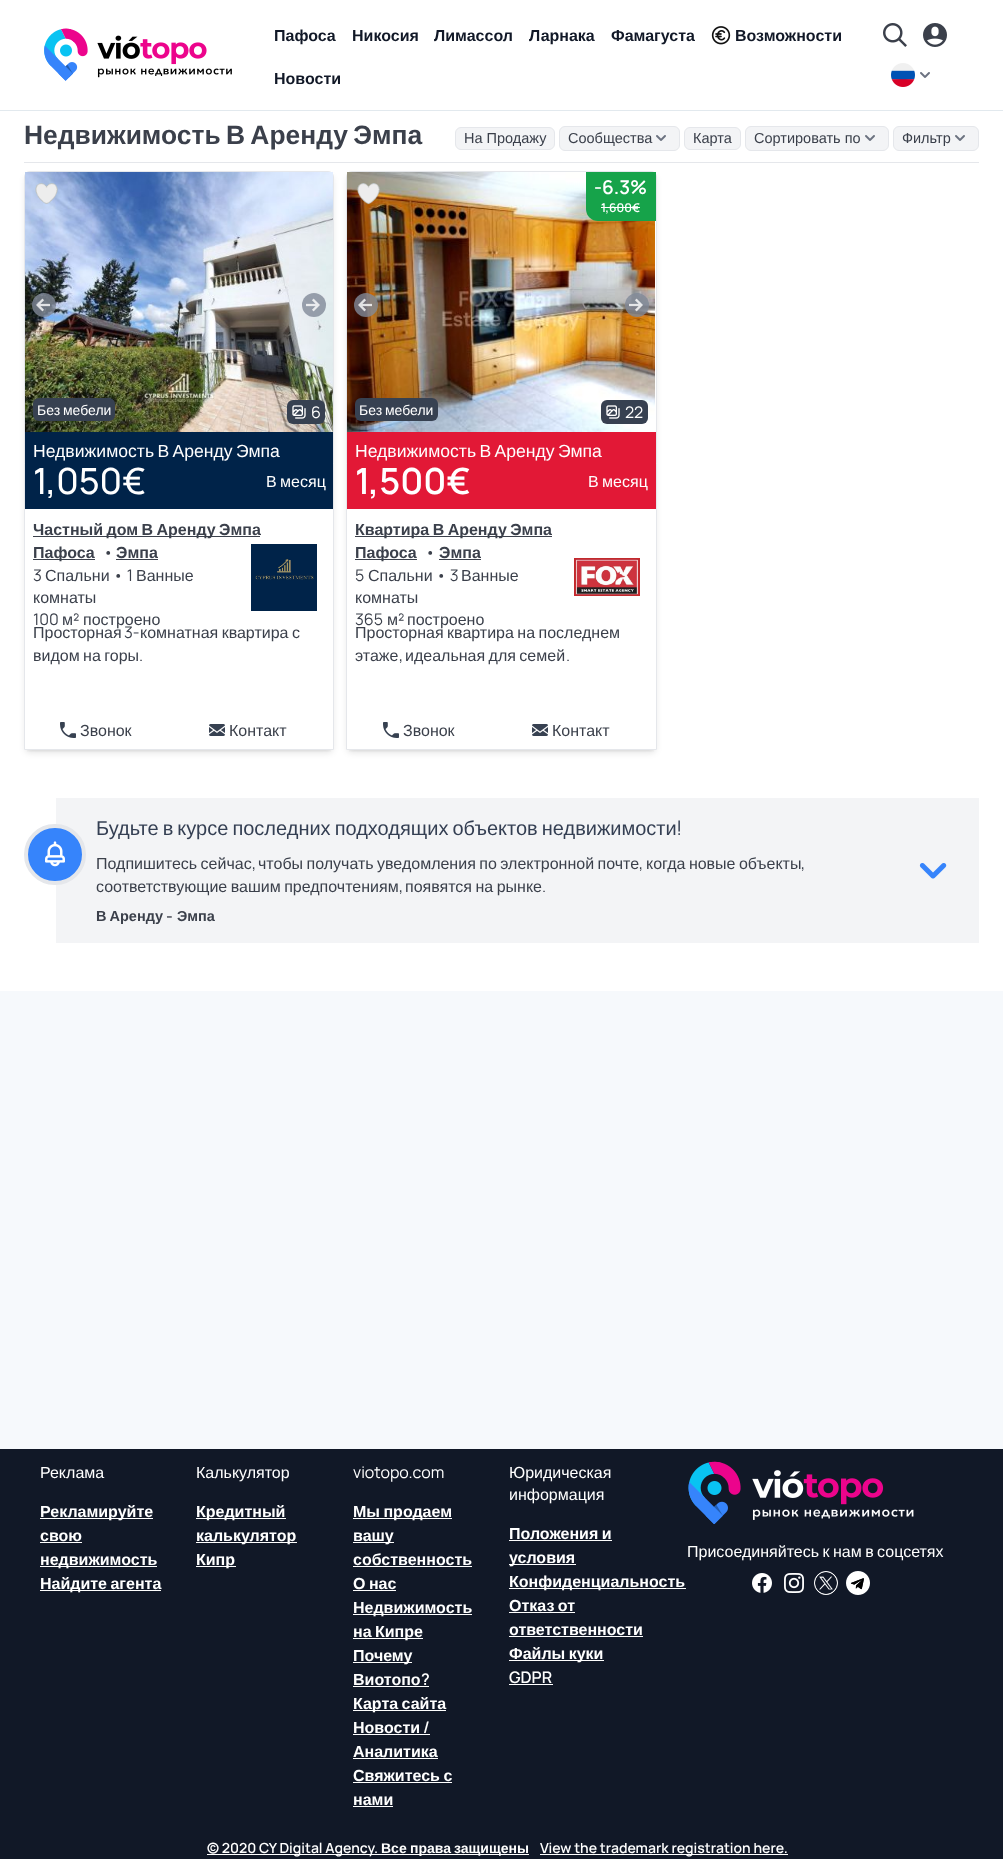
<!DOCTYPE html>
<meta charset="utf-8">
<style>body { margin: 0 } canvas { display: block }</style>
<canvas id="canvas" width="1003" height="1859"></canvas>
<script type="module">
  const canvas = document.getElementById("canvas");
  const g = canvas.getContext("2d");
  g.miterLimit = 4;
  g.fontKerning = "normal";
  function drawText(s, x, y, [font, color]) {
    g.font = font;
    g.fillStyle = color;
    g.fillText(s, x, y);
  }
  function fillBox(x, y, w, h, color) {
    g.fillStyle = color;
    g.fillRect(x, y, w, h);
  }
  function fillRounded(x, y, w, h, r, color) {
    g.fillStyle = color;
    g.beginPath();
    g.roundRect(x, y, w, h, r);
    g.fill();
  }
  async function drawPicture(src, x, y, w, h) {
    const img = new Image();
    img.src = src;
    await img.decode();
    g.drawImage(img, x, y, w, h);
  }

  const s1 = ["bold 16px Liberation Sans", "#111827"];
  const s2 = ["bold 26.4px Liberation Sans", "#3B404B"];
  const s3 = ["14.5px Liberation Sans", "#3B404B"];
  const s4 = ["14px Liberation Sans", "#FFFFFF"];
  const s5 = ["200 16px Manrope", "#FFFFFF"];
  const s6 = ["17.6px Liberation Sans", "#FFFFFF"];
  const s7 = ["200 36px 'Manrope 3'", "#FFFFFF"];
  const s8 = ["16px Liberation Sans", "#FFFFFF"];
  const s9 = ["bold 16px Liberation Sans", "#3B404B"];
  const s10 = ["200 16px Manrope", "#3B404B"];
  const s11 = ["16px Liberation Sans", "#3B404B"];
  const s12 = ["200 19px 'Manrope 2'", "#FFFFFF"];
  const s13 = ["200 12px 'Manrope 2'", "#FFFFFF"];
  const s14 = ["200 36px 'Manrope 2'", "#FFFFFF"];
  const s15 = ["20px Liberation Sans", "#343F53"];
  const s16 = ["200 20px Manrope", "#343F53"];
  const s17 = ["bold 14.5px Liberation Sans", "#3B404B"];
  const s18 = ["200 16px 'Manrope 2'", "#3B404B"];
  const s19 = ["bold 16px Liberation Sans", "#FFFFFF"];
  const s20 = ["200 16px 'Manrope 2'", "#FFFFFF"];
  const s21 = ["200 14px 'Manrope 2'", "#FFFFFF"];
  const s22 = ["bold 14px Liberation Sans", "#FFFFFF"];

  fillBox(0, 0, 1003, 1859, "#F6F9FC");
  fillBox(0, 0, 1003, 110, "#FFFFFF");
  fillBox(0, 110, 1003, 1, "#E2E9EE");
  await drawPicture("pic1.png", 44, 28, 188, 53);
  drawText("Пафоса", 274, 41, s1);
  drawText("Никосия", 352, 41, s1);
  drawText("Лимассол", 434, 41, s1);
  drawText("Ларнака", 529, 41, s1);
  drawText("Фамагуста", 611, 41, s1);
  await drawPicture("pic2.png", 711, 26, 20, 19);
  drawText("Возможности", 735, 41, s1);
  drawText("Новости", 274, 84, s1);
  await drawPicture("pic3.png", 883, 23, 24, 24);
  await drawPicture("pic4.png", 923, 23, 24, 24);
  await drawPicture("pic5.png", 891, 63, 24, 24);
  await drawPicture("pic6.png", 920, 72, 10, 6);
  fillBox(0, 111, 1003, 880, "#FFFFFF");
  fillBox(24, 162, 955, 1, "#E5E7EB");
  g.wordSpacing = "-2px";
  drawText("Недвижимость В Аренду Эмпа", 24, 144, s2);
  g.fillStyle = "#F3F4F6";
  g.beginPath();
  g.roundRect(455.5, 127.5, 99, 22, 5.5);
  g.fill();
  g.strokeStyle = "#E5E7EB";
  g.stroke();
  g.wordSpacing = "0px";
  drawText("На Продажу", 464, 143, s3);
  g.fillStyle = "#F3F4F6";
  g.beginPath();
  g.roundRect(559.5, 126.5, 120, 24, 5.5);
  g.fill();
  g.stroke();
  drawText("Сообщества", 568, 143, s3);
  await drawPicture("pic7.png", 656, 135, 10, 6);
  g.fillStyle = "#F3F4F6";
  g.beginPath();
  g.roundRect(684.5, 127.5, 56, 22, 5.5);
  g.fill();
  g.stroke();
  drawText("Карта", 693, 143, s3);
  g.fillStyle = "#F3F4F6";
  g.beginPath();
  g.roundRect(745.5, 126.5, 143, 24, 5.5);
  g.fill();
  g.stroke();
  drawText("Сортировать по", 754, 143, s3);
  await drawPicture("pic7.png", 865, 135, 10, 6);
  g.fillStyle = "#F3F4F6";
  g.beginPath();
  g.roundRect(893.5, 126.5, 85, 24, 5.5);
  g.fill();
  g.stroke();
  drawText("Фильтр", 902, 143, s3);
  await drawPicture("pic7.png", 955, 135, 10, 6);
  g.save();
  g.beginPath();
  g.rect(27, 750, 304, 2);
  g.clip();
  g.fillStyle = "rgba(0, 0, 0, 0.1)";
  g.filter = "blur(2px)";
  g.beginPath();
  g.roundRect(26, 175, 306, 575, 4);
  g.fill();
  g.filter = "none";
  g.restore();
  g.save();
  g.beginPath();
  g.moveTo(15, 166);
  g.lineTo(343, 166);
  g.lineTo(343, 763);
  g.lineTo(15, 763);
  g.closePath();
  g.moveTo(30, 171);
  g.lineTo(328, 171);
  g.bezierCurveTo(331.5, 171, 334, 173.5, 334, 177);
  g.lineTo(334, 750);
  g.lineTo(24, 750);
  g.lineTo(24, 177);
  g.bezierCurveTo(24, 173.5, 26.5, 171, 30, 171);
  g.closePath();
  g.clip("evenodd");
  g.fillStyle = "rgba(0, 0, 0, 0.1)";
  g.filter = "blur(3px)";
  g.beginPath();
  g.roundRect(25, 176, 308, 577, 5);
  g.fill();
  g.filter = "none";
  g.restore();
  g.beginPath();
  g.roundRect(24.5, 171.5, 309, 578, [5.5, 5.5, 0, 0]);
  g.stroke();
  await drawPicture("pic8.png", 25, 172, 308, 260);
  g.fillStyle = "rgba(129, 137, 153, 0.8)";
  g.beginPath();
  g.arc(44, 305, 12, 0, Math.PI * 2);
  g.fill();
  await drawPicture("pic9.png", 36, 298, 14, 14);
  g.beginPath();
  g.arc(314, 305, 12, 0, Math.PI * 2);
  g.fill();
  await drawPicture("pic10.png", 306, 298, 14, 14);
  await drawPicture("pic11.png", 35, 183, 23, 21);
  fillRounded(33, 398, 82, 23, 6, "#374151");
  g.wordSpacing = "-1px";
  drawText("Без мебели", 37, 415, s4);
  fillRounded(287, 400, 38, 24, 6, "#374151");
  await drawPicture("pic12.png", 292, 405, 14, 14);
  g.wordSpacing = "0px";
  drawText("6", 311, 418, s5);
  fillBox(25, 432, 308, 77, "#002349");
  g.wordSpacing = "-1.5px";
  drawText("Недвижимость В Аренду Эмпа", 33, 457, s6);
  g.wordSpacing = "0px";
  drawText("1,050€", 33, 494, s7);
  g.wordSpacing = "-1px";
  drawText("В месяц", 266, 487, s8);
  fillBox(33, 536, 227, 1, "#3B404B");
  drawText("Частный дом В Аренду Эмпа", 33, 535, s9);
  fillBox(33, 559, 62, 1, "#3B404B");
  g.wordSpacing = "0px";
  drawText("Пафоса", 33, 558, s9);
  drawText("•", 103, 558, s10);
  drawText("Эмпа", 116, 558, s9);
  fillBox(116, 559, 42, 1, "#3B404B");
  drawText("3", 33, 581, s10);
  drawText("Спальни", 45, 581, s11);
  drawText("• 1", 113, 581, s10);
  drawText("Ванные", 136, 581, s11);
  drawText("комнаты", 33, 603, s11);
  drawText("100", 33, 625, s10);
  drawText("м", 62, 625, s11);
  drawText("²", 73, 625, s10);
  drawText("построено", 83, 625, s11);
  await drawPicture("pic13.png", 251, 544, 66, 67);
  drawText("Просторная", 33, 638, s11);
  drawText("3-", 124, 638, s10);
  g.wordSpacing = "-1px";
  drawText("комнатная квартира с", 140, 638, s11);
  drawText("видом на горы", 33, 661, s11);
  g.wordSpacing = "0px";
  drawText(".", 139, 661, s10);
  await drawPicture("pic14.png", 60, 722, 16, 16);
  drawText("Звонок", 80, 736, s11);
  await drawPicture("pic15.png", 209, 724, 16, 12);
  drawText("Контакт", 229, 736, s11);
  g.save();
  g.beginPath();
  g.rect(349, 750, 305, 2);
  g.clip();
  g.fillStyle = "rgba(0, 0, 0, 0.1)";
  g.filter = "blur(2px)";
  g.beginPath();
  g.roundRect(348, 175, 307, 575, 4);
  g.fill();
  g.filter = "none";
  g.restore();
  g.save();
  g.beginPath();
  g.moveTo(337, 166);
  g.lineTo(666, 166);
  g.lineTo(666, 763);
  g.lineTo(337, 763);
  g.closePath();
  g.moveTo(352, 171);
  g.lineTo(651, 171);
  g.bezierCurveTo(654.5, 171, 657, 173.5, 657, 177);
  g.lineTo(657, 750);
  g.lineTo(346, 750);
  g.lineTo(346, 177);
  g.bezierCurveTo(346, 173.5, 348.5, 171, 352, 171);
  g.closePath();
  g.clip("evenodd");
  g.fillStyle = "rgba(0, 0, 0, 0.1)";
  g.filter = "blur(3px)";
  g.beginPath();
  g.roundRect(347, 176, 309, 577, 5);
  g.fill();
  g.filter = "none";
  g.restore();
  g.beginPath();
  g.roundRect(346.5, 171.5, 310, 578, [5.5, 5.5, 0, 0]);
  g.stroke();
  await drawPicture("pic16.png", 347, 172, 308, 260);
  g.fillStyle = "rgba(129, 137, 153, 0.8)";
  g.beginPath();
  g.arc(366, 305, 12, 0, Math.PI * 2);
  g.fill();
  await drawPicture("pic17.png", 358, 298, 14, 14);
  g.beginPath();
  g.arc(637, 305, 12, 0, Math.PI * 2);
  g.fill();
  await drawPicture("pic18.png", 629, 298, 14, 14);
  await drawPicture("pic19.png", 357, 183, 23, 21);
  g.fillStyle = "#16A34A";
  g.beginPath();
  g.roundRect(586, 172, 70, 49, [0, 0, 0, 12]);
  g.fill();
  drawText("-6.3%", 594, 194, s12);
  drawText("1,600€", 601, 212, s13);
  fillBox(601, 207, 39, 1, "#FFFFFF");
  fillRounded(355, 398, 83, 23, 6, "#374151");
  g.wordSpacing = "-1px";
  drawText("Без мебели", 359, 415, s4);
  fillRounded(601, 400, 47, 24, 6, "#374151");
  await drawPicture("pic12.png", 606, 405, 14, 14);
  g.wordSpacing = "0px";
  drawText("22", 625, 418, s5);
  fillBox(347, 432, 309, 77, "#E21836");
  g.wordSpacing = "-1.5px";
  drawText("Недвижимость В Аренду Эмпа", 355, 457, s6);
  g.wordSpacing = "0px";
  drawText("1,500€", 355, 494, s14);
  g.wordSpacing = "-1px";
  drawText("В месяц", 588, 487, s8);
  fillBox(355, 536, 197, 1, "#3B404B");
  drawText("Квартира В Аренду Эмпа", 355, 535, s9);
  fillBox(355, 559, 62, 1, "#3B404B");
  g.wordSpacing = "0px";
  drawText("Пафоса", 355, 558, s9);
  drawText("•", 425, 558, s10);
  drawText("Эмпа", 439, 558, s9);
  fillBox(439, 559, 42, 1, "#3B404B");
  drawText("5", 355, 581, s10);
  drawText("Спальни", 368, 581, s11);
  drawText("• 3", 436, 581, s10);
  drawText("Ванные", 461, 581, s11);
  drawText("комнаты", 355, 603, s11);
  drawText("365", 355, 625, s10);
  drawText("м", 387, 625, s11);
  drawText("²", 398, 625, s10);
  drawText("построено", 407, 625, s11);
  await drawPicture("pic20.png", 574, 558, 66, 38);
  g.wordSpacing = "-1px";
  drawText("Просторная квартира на последнем", 355, 638, s11);
  g.wordSpacing = "0px";
  drawText("этаже", 355, 661, s11);
  drawText(",", 399, 661, s10);
  g.wordSpacing = "-1px";
  drawText("идеальная для семей", 405, 661, s11);
  g.wordSpacing = "0px";
  drawText(".", 566, 661, s10);
  await drawPicture("pic14.png", 383, 722, 16, 16);
  drawText("Звонок", 403, 736, s11);
  await drawPicture("pic15.png", 532, 724, 16, 12);
  drawText("Контакт", 552, 736, s11);
  fillBox(56, 798, 923, 145, "#F3F4F6");
  g.fillStyle = "#3684FB";
  g.beginPath();
  g.roundRect(26, 826, 58, 57, 28.5);
  g.fill();
  g.lineWidth = 4;
  g.stroke();
  await drawPicture("pic21.png", 45, 841, 20, 26);
  g.wordSpacing = "-1.5px";
  drawText("Будьте в курсе последних подходящих объектов недвижимости", 96, 835, s15);
  g.wordSpacing = "0px";
  drawText("!", 676, 835, s16);
  g.wordSpacing = "-1px";
  drawText("Подпишитесь сейчас", 96, 869, s11);
  g.wordSpacing = "0px";
  drawText(",", 252, 869, s10);
  g.wordSpacing = "-1px";
  drawText("чтобы получать уведомления по электронной почте", 258, 869, s11);
  g.wordSpacing = "0px";
  drawText(",", 639, 869, s10);
  g.wordSpacing = "-1px";
  drawText("когда новые объекты", 646, 869, s11);
  g.wordSpacing = "0px";
  drawText(",", 801, 869, s10);
  g.wordSpacing = "-1px";
  drawText("соответствующие вашим предпочтениям", 96, 892, s11);
  g.wordSpacing = "0px";
  drawText(",", 399, 892, s10);
  g.wordSpacing = "-1px";
  drawText("появятся на рынке", 405, 892, s11);
  g.wordSpacing = "0px";
  drawText(".", 542, 892, s10);
  g.wordSpacing = "-1px";
  drawText("В Аренду", 96, 921, s17);
  g.wordSpacing = "0px";
  drawText("-", 166, 922, s18);
  drawText("Эмпа", 177, 921, s17);
  await drawPicture("pic22.png", 919, 863, 28, 16);
  fillBox(0, 1449, 1003, 410, "#111827");
  drawText("Реклама", 40, 1478, s8);
  fillBox(40, 1518, 113, 1, "#FFFFFF");
  drawText("Рекламируйте", 40, 1517, s19);
  drawText("свою", 40, 1541, s19);
  fillBox(40, 1542, 42, 1, "#FFFFFF");
  fillBox(40, 1566, 117, 1, "#FFFFFF");
  drawText("недвижимость", 40, 1565, s19);
  fillBox(40, 1590, 121, 1, "#FFFFFF");
  g.wordSpacing = "-1px";
  drawText("Найдите агента", 40, 1589, s19);
  g.wordSpacing = "0px";
  drawText("Калькулятор", 196, 1478, s8);
  fillBox(196, 1518, 90, 1, "#FFFFFF");
  drawText("Кредитный", 196, 1517, s19);
  fillBox(196, 1542, 101, 1, "#FFFFFF");
  drawText("калькулятор", 196, 1541, s19);
  fillBox(196, 1566, 40, 1, "#FFFFFF");
  drawText("Кипр", 196, 1565, s19);
  drawText("viotopo.com", 353, 1478, s5);
  fillBox(353, 1518, 99, 1, "#FFFFFF");
  g.wordSpacing = "-1px";
  drawText("Мы продаем", 353, 1517, s19);
  fillBox(353, 1542, 41, 1, "#FFFFFF");
  g.wordSpacing = "0px";
  drawText("вашу", 353, 1541, s19);
  drawText("собственность", 353, 1565, s19);
  fillBox(353, 1566, 119, 1, "#FFFFFF");
  g.wordSpacing = "-1px";
  drawText("О нас", 353, 1589, s19);
  fillBox(353, 1590, 43, 1, "#FFFFFF");
  fillBox(353, 1614, 119, 1, "#FFFFFF");
  g.wordSpacing = "0px";
  drawText("Недвижимость", 353, 1613, s19);
  fillBox(353, 1638, 70, 1, "#FFFFFF");
  g.wordSpacing = "-1px";
  drawText("на Кипре", 353, 1637, s19);
  fillBox(353, 1662, 59, 1, "#FFFFFF");
  g.wordSpacing = "0px";
  drawText("Почему", 353, 1661, s19);
  drawText("Виотопо", 353, 1685, s19);
  fillBox(353, 1686, 76, 1, "#FFFFFF");
  drawText("?", 421, 1685, s20);
  fillBox(353, 1710, 93, 1, "#FFFFFF");
  g.wordSpacing = "-1px";
  drawText("Карта сайта", 353, 1709, s19);
  g.wordSpacing = "0px";
  drawText("Новости", 353, 1733, s19);
  fillBox(353, 1734, 77, 1, "#FFFFFF");
  drawText("/", 423, 1733, s20);
  drawText("Аналитика", 353, 1757, s19);
  fillBox(353, 1758, 85, 1, "#FFFFFF");
  g.wordSpacing = "-1px";
  drawText("Свяжитесь с", 353, 1781, s19);
  fillBox(353, 1782, 99, 1, "#FFFFFF");
  g.wordSpacing = "0px";
  drawText("нами", 353, 1805, s19);
  fillBox(353, 1806, 40, 1, "#FFFFFF");
  drawText("Юридическая", 509, 1478, s8);
  drawText("информация", 509, 1500, s8);
  g.wordSpacing = "-1px";
  drawText("Положения и", 509, 1539, s19);
  fillBox(509, 1540, 103, 1, "#FFFFFF");
  fillBox(509, 1564, 67, 1, "#FFFFFF");
  g.wordSpacing = "0px";
  drawText("условия", 509, 1563, s19);
  fillBox(509, 1588, 177, 1, "#FFFFFF");
  drawText("Конфиденциальность", 509, 1587, s19);
  g.wordSpacing = "-1px";
  drawText("Отказ от", 509, 1611, s19);
  fillBox(509, 1612, 66, 1, "#FFFFFF");
  g.wordSpacing = "0px";
  drawText("ответственности", 509, 1635, s19);
  fillBox(509, 1636, 134, 1, "#FFFFFF");
  fillBox(509, 1660, 95, 1, "#FFFFFF");
  g.wordSpacing = "-1px";
  drawText("Файлы куки", 509, 1659, s19);
  g.wordSpacing = "0px";
  drawText("GDPR", 509, 1683, s20);
  fillBox(509, 1684, 44, 1, "#FFFFFF");
  await drawPicture("pic23.png", 688, 1461, 226, 63);
  g.wordSpacing = "-1px";
  drawText("Присоединяйтесь к нам в соцсетях", 687, 1557, s8);
  await drawPicture("pic24.png", 752, 1573, 20, 20);
  await drawPicture("pic25.png", 784, 1573, 20, 20);
  g.beginPath();
  g.arc(826, 1583, 11.5, 0, Math.PI * 2);
  g.fill();
  g.strokeStyle = "#FFFFFF";
  g.lineWidth = 1;
  g.stroke();
  await drawPicture("pic26.png", 815, 1572, 22, 22);
  await drawPicture("pic27.png", 846, 1571, 24, 24);
  fillBox(207, 1854, 322, 1, "#FFFFFF");
  g.wordSpacing = "0px";
  drawText("© 2020 CY Digital Agency.", 207, 1853, s21);
  drawText("Все", 381, 1853, s22);
  drawText("права", 410, 1853, s22);
  drawText("защищены", 454, 1853, s22);
  fillBox(540, 1854, 248, 1, "#FFFFFF");
  drawText("View the trademark registration here.", 540, 1853, s21);
</script>
